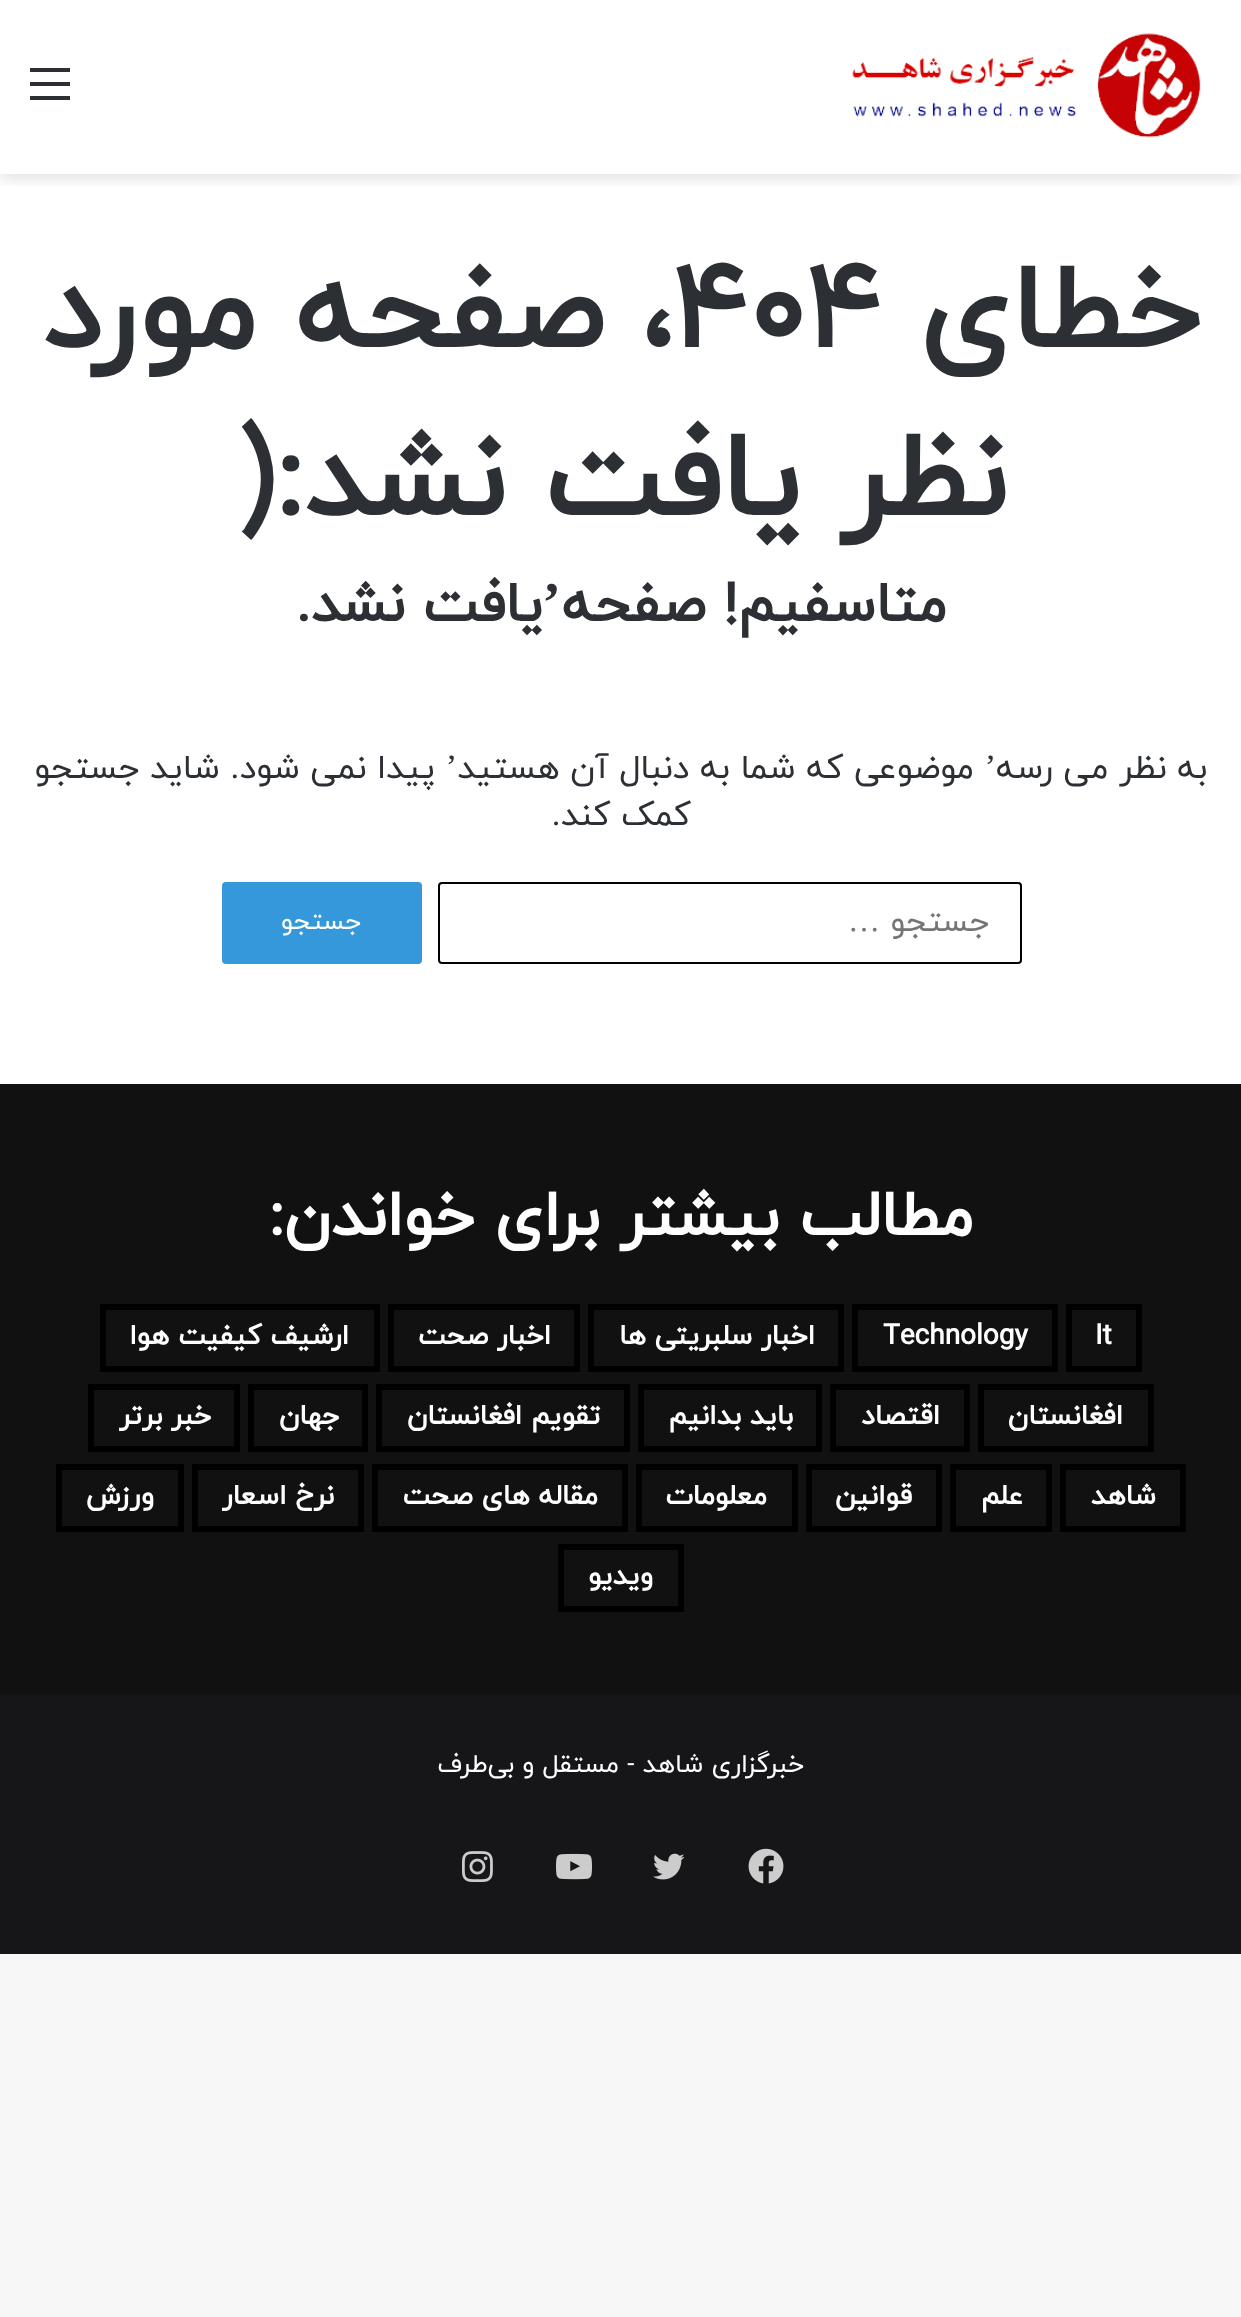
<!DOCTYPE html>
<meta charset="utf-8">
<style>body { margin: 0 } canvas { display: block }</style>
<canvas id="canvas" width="1241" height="2317"></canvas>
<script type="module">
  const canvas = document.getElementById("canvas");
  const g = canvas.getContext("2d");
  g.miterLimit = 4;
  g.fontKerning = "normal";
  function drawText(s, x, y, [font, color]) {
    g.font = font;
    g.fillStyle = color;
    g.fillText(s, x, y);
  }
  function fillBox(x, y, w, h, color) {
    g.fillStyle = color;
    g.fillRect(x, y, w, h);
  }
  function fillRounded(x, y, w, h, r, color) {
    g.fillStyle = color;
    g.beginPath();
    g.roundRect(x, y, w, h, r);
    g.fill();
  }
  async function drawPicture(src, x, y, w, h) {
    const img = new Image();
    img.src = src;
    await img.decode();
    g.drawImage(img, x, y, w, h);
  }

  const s1 = ["bold 120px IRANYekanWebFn", "#2C2F34"];
  const s2 = ["bold 56px IRANYekanWebFn", "#2C2F34"];
  const s3 = ["bold 56px Liberation Serif", "#2C2F34"];
  const s4 = ["34px IRANYekanWebFn", "#2C2F34"];
  const s5 = ["34px Liberation Serif", "#2C2F34"];
  const s6 = ["32px IRANYekanWebFn", "#757575"];
  const s7 = ["32px Liberation Serif", "#757575"];
  const s8 = ["26px IRANYekanWebFn", "#FFFFFF"];
  const s9 = ["bold 64px IRANYekanWebFn", "#FFFFFF"];
  const s10 = ["bold 28px IRANYekanWebFn", "#FFFFFF"];

  fillBox(0, 0, 1241, 2317, "#F7F7F7");
  fillBox(0, 0, 1241, 1084, "#FFFFFF");
  g.save();
  g.beginPath();
  g.rect(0, 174, 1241, 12);
  g.clip();
  g.fillStyle = "rgba(0, 0, 0, 0.1)";
  g.filter = "blur(7px)";
  g.beginPath();
  g.rect(0, 6, 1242, 174);
  g.fill();
  g.filter = "none";
  g.restore();
  await drawPicture("pic1.png", 852, 33, 349, 105);
  fillBox(30, 82, 40, 4, "#2C2F34");
  fillBox(30, 68, 40, 4, "#2C2F34");
  fillBox(30, 96, 40, 4, "#2C2F34");
  g.direction = "rtl";
  drawText("خطای", 1200, 347, s1);
  g.direction = "ltr";
  drawText("404", 673, 347, s1);
  g.direction = "rtl";
  drawText("، صفحه مورد", 673, 347, s1);
  drawText("نظر یافت نشد:(", 1006, 515, s1);
  drawText("متاسفیم! صفحه", 947, 621, s2);
  drawText("’", 561, 621, s3);
  drawText("یافت نشد.", 543, 621, s2);
  drawText("به نظر می رسه", 1207, 778, s4);
  drawText("’", 996, 778, s5);
  drawText("موضوعی که شما به دنبال آن هستید", 974, 778, s4);
  drawText("’", 457, 778, s5);
  drawText("پیدا نمی شود. شاید جستجو", 435, 778, s4);
  drawText("کمک کند.", 691, 825, s4);
  g.beginPath();
  g.roundRect(439, 883, 582, 80, 3);
  g.strokeStyle = "#000000";
  g.lineWidth = 2;
  g.stroke();
  drawText("جستجو", 989, 931, s6);
  drawText("…", 880, 931, s7);
  fillRounded(222, 882, 200, 82, 4, "#3498DB");
  drawText("جستجو", 361, 929, s8);
  fillBox(0, 1084, 1241, 610, "#111111");
  drawText("مطالب بیشتر برای خواندن:", 974, 1235, s9);
  g.lineWidth = 6;
  g.strokeRect(1069, 1307, 70, 62);
  g.direction = "ltr";
  drawText("It", 1095, 1344, s10);
  g.strokeRect(855, 1307, 200, 62);
  drawText("Technology", 883, 1344, s10);
  g.strokeRect(591, 1307, 250, 62);
  g.direction = "rtl";
  drawText("اخبار سلبریتی ها", 815, 1344, s10);
  g.strokeRect(391, 1307, 186, 62);
  drawText("اخبار صحت", 551, 1344, s10);
  g.strokeRect(103, 1307, 274, 62);
  drawText("ارشیف کیفیت هوا", 349, 1344, s10);
  g.strokeRect(981, 1387, 170, 62);
  drawText("افغانستان", 1123, 1424, s10);
  g.strokeRect(833, 1387, 134, 62);
  drawText("اقتصاد", 940, 1424, s10);
  g.strokeRect(641, 1387, 178, 62);
  drawText("باید بدانیم", 793, 1424, s10);
  g.strokeRect(379, 1387, 248, 62);
  drawText("تقویم افغانستان", 600, 1424, s10);
  g.strokeRect(251, 1387, 114, 62);
  drawText("جهان", 339, 1424, s10);
  g.strokeRect(91, 1387, 146, 62);
  drawText("خبر برتر", 211, 1424, s10);
  g.strokeRect(1063, 1467, 120, 62);
  drawText("شاهد", 1156, 1504, s10);
  g.strokeRect(953, 1467, 96, 62);
  drawText("علم", 1023, 1504, s10);
  g.strokeRect(809, 1467, 130, 62);
  drawText("قوانین", 912, 1504, s10);
  g.strokeRect(639, 1467, 156, 62);
  drawText("معلومات", 767, 1504, s10);
  g.strokeRect(375, 1467, 250, 62);
  drawText("مقاله های صحت", 598, 1504, s10);
  g.strokeRect(195, 1467, 166, 62);
  drawText("نرخ اسعار", 334, 1504, s10);
  g.strokeRect(59, 1467, 122, 62);
  drawText("ورزش", 154, 1504, s10);
  g.strokeRect(561, 1547, 120, 62);
  drawText("ویدیو", 653, 1584, s10);
  fillBox(0, 1694, 1241, 260, "#161619");
  drawText("خبرگزاری شاهد - مستقل و بی‌طرف", 804, 1772, s8);
  await drawPicture("pic2.png", 748, 1848, 36, 36);
  await drawPicture("pic3.png", 653, 1853, 32, 27);
  await drawPicture("pic4.png", 556, 1853, 36, 27);
  await drawPicture("pic5.png", 462, 1851, 31, 31);
</script>
